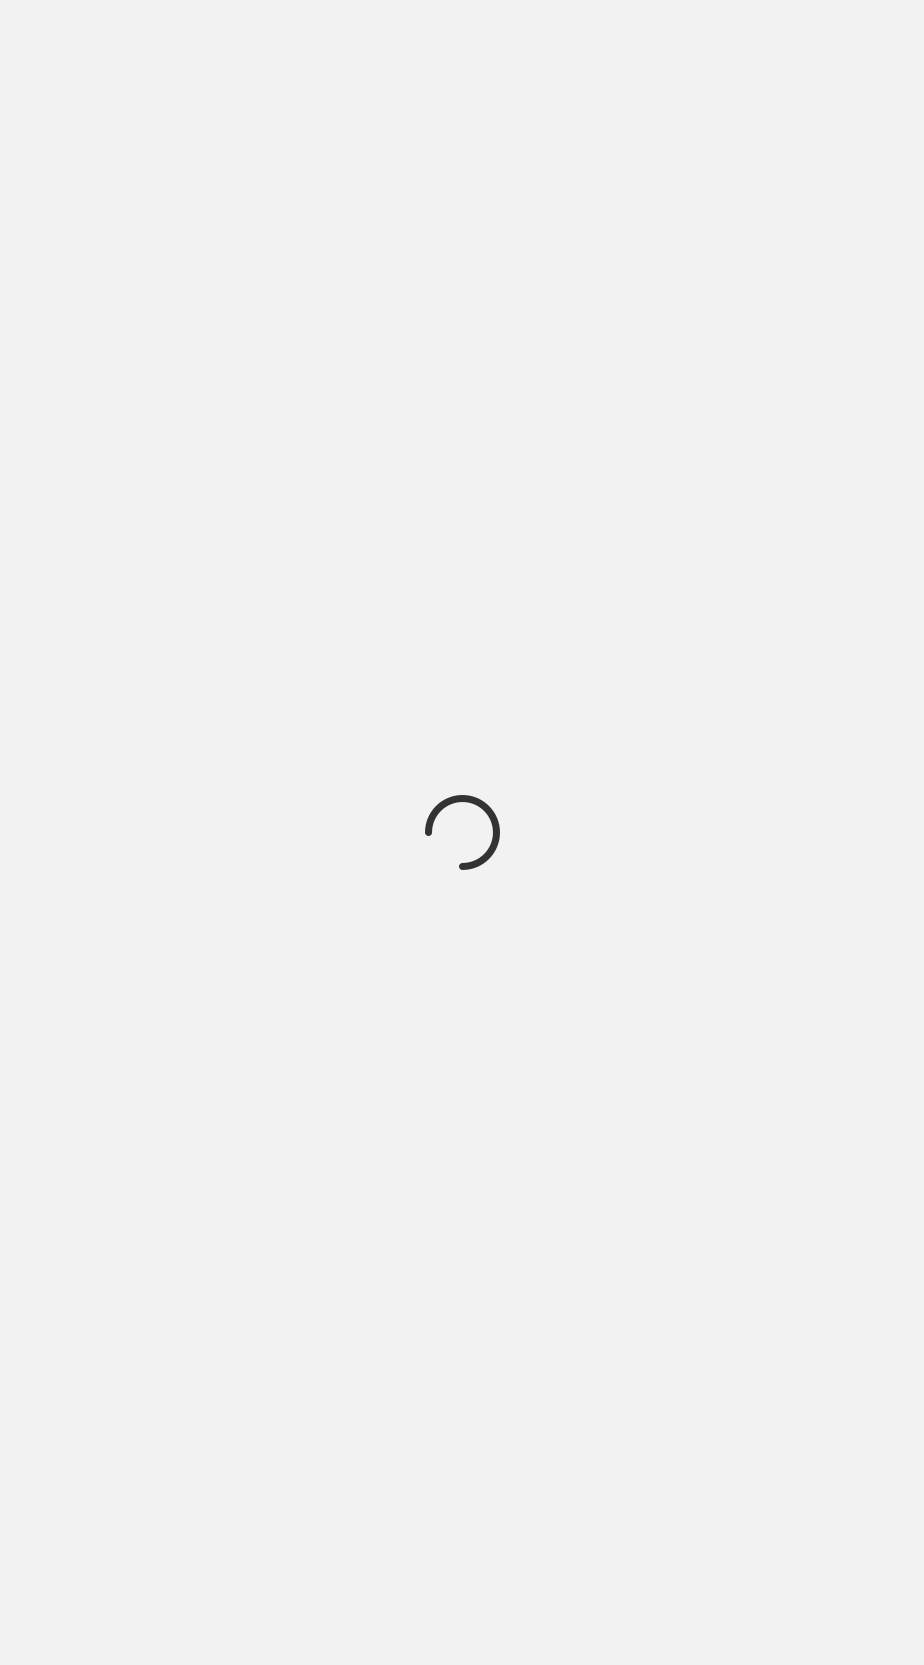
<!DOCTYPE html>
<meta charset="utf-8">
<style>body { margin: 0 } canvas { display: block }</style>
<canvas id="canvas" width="924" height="1665"></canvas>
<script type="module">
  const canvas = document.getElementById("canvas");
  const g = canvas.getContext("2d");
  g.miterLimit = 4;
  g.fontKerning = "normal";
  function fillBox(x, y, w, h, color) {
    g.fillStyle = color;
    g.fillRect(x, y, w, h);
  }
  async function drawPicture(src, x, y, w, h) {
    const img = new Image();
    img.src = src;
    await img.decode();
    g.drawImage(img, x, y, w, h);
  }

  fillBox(0, 0, 924, 1665, "#F2F2F2");
  await drawPicture("pic1.png", 425, 795, 75, 75);
</script>
